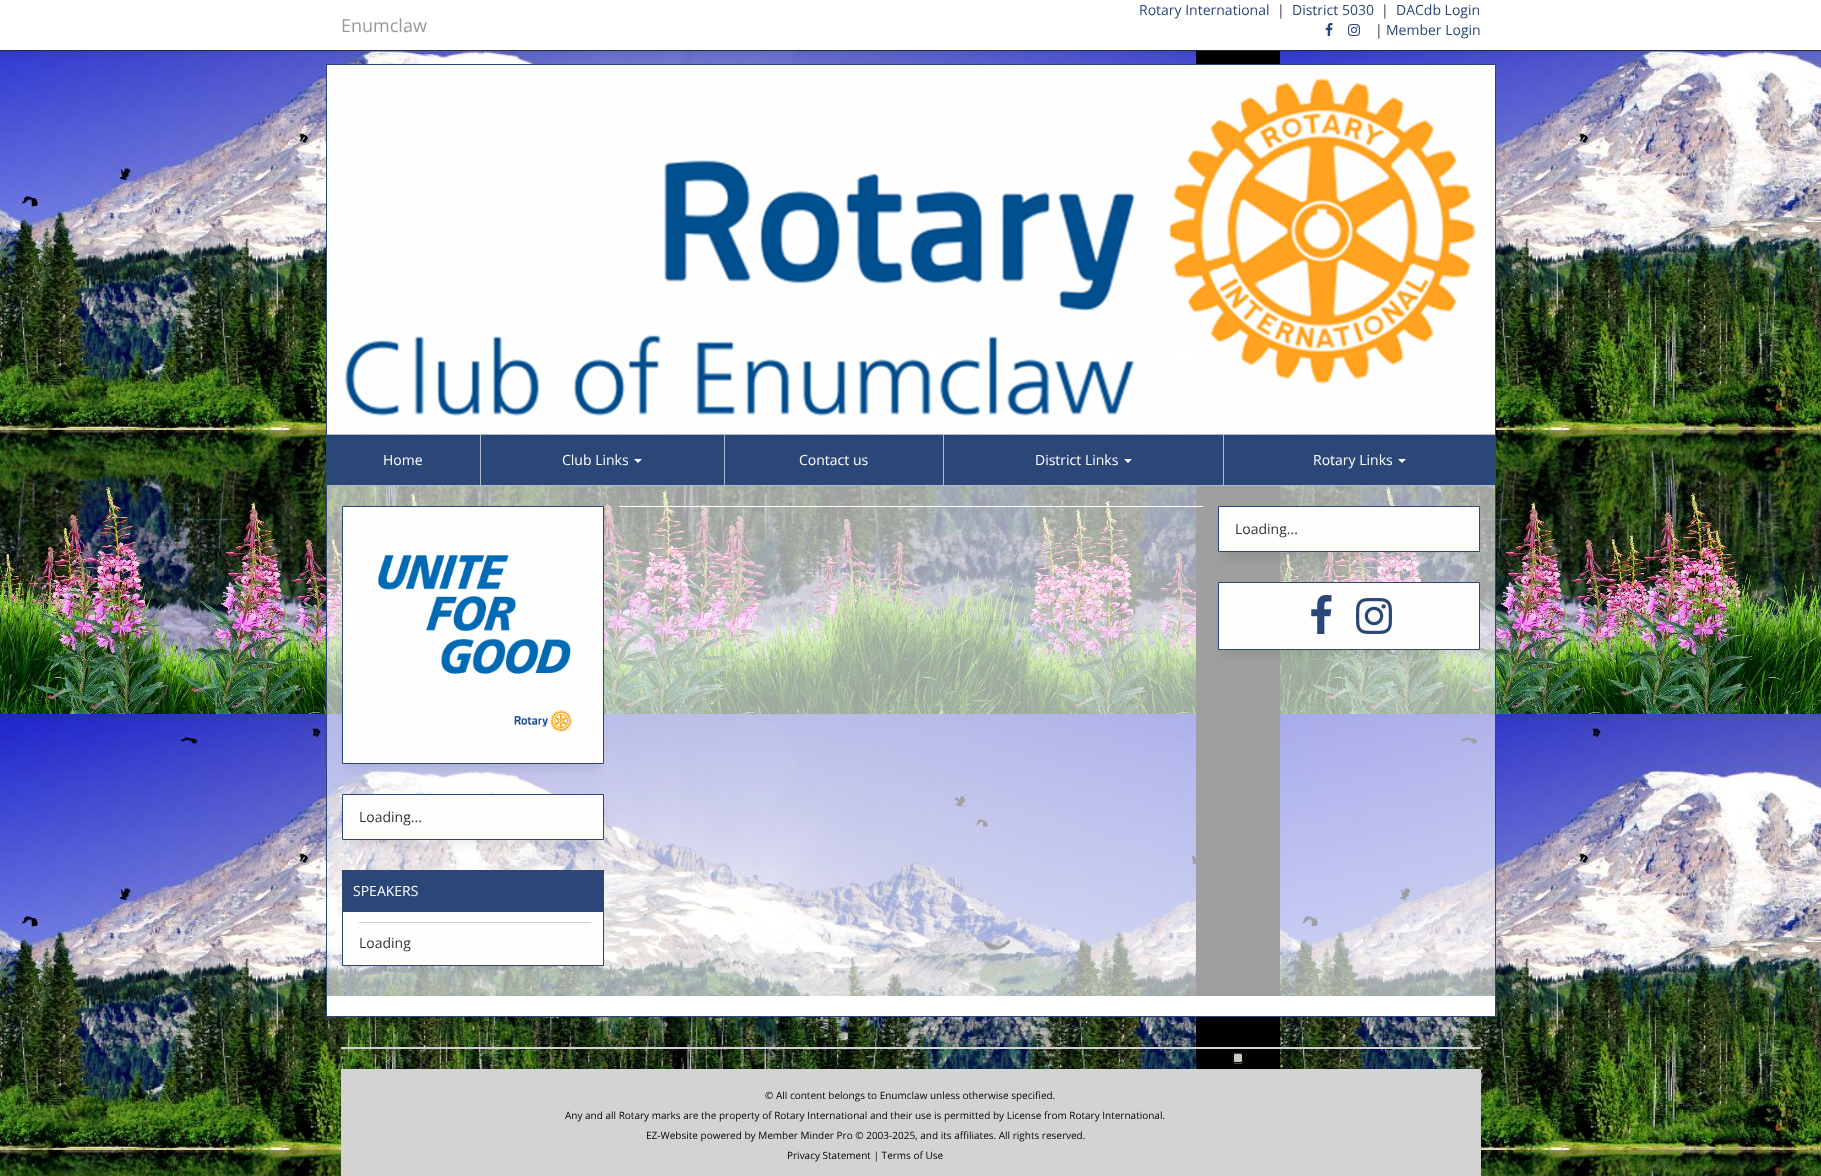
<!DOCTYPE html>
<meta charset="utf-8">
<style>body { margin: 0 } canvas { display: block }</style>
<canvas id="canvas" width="1821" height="1176"></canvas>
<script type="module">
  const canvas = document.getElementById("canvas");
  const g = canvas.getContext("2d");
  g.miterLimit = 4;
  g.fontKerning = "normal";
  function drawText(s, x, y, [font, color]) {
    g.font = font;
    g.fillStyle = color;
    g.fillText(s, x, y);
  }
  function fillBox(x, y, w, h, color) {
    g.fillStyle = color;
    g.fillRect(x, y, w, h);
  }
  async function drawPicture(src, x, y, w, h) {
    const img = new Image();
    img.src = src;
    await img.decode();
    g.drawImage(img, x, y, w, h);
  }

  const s1 = ["14px Open Sans", "#2A4777"];
  const s2 = ["14px Open Sans", "#333333"];
  const s3 = ["18px Open Sans", "#999999"];
  const s4 = ["14px Open Sans", "#FFFFFF"];
  const s5 = ["10px Open Sans", "#000000"];

  fillBox(0, 0, 1821, 1176, "#FFFFFF");
  await drawPicture("pic1.png", 0, 51, 1821, 1125);
  g.fillStyle = "rgba(0, 0, 0, 0.07)";
  g.filter = "blur(2.5px)";
  g.beginPath();
  g.rect(0, 1, 1821, 51);
  g.fill();
  g.filter = "none";
  fillBox(0, 0, 1821, 50, "#FFFFFF");
  fillBox(0, 50, 1821, 1, "#242E38");
  drawText("Rotary International", 1139, 15, s1);
  drawText("|", 1277, 15, s2);
  drawText("District 5030", 1292, 15, s1);
  drawText("|", 1381, 15, s2);
  drawText("DACdb Login", 1396, 15, s1);
  drawText("Enumclaw", 341, 32, s3);
  await drawPicture("pic2.png", 1325, 23, 8, 13);
  await drawPicture("pic3.png", 1348, 24, 12, 12);
  drawText("|", 1375, 35, s2);
  drawText("Member Login", 1386, 35, s1);
  g.strokeStyle = "#2A4777";
  g.strokeRect(326.5, 64.5, 1169, 952);
  await drawPicture("pic4.png", 327, 65, 1168, 369);
  fillBox(327, 435, 1168, 50, "#2A4777");
  fillBox(327, 434, 1168, 1, "#AEB9CB");
  fillBox(327, 485, 1168, 1, "#AEB9CB");
  fillBox(480, 435, 1, 50, "#AEB9CB");
  drawText("Home", 383, 465, s4);
  fillBox(724, 435, 1, 50, "#AEB9CB");
  drawText("Club Links", 562, 465, s4);
  g.beginPath();
  g.moveTo(634, 459);
  g.lineTo(642, 459);
  g.lineTo(638, 463);
  g.closePath();
  g.fill();
  fillBox(943, 435, 1, 50, "#AEB9CB");
  drawText("Contact us", 799, 465, s4);
  fillBox(1223, 435, 1, 50, "#AEB9CB");
  drawText("District Links", 1035, 465, s4);
  g.beginPath();
  g.moveTo(1124, 459);
  g.lineTo(1132, 459);
  g.lineTo(1128, 463);
  g.closePath();
  g.fill();
  drawText("Rotary Links", 1313, 465, s4);
  g.beginPath();
  g.moveTo(1398, 459);
  g.lineTo(1406, 459);
  g.lineTo(1402, 463);
  g.closePath();
  g.fill();
  fillBox(327, 486, 1168, 510, "rgba(255, 255, 255, 0.62)");
  fillBox(619, 506, 584, 1, "#FFFFFF");
  g.fillStyle = "rgba(0, 0, 0, 0.08)";
  g.filter = "blur(5px)";
  g.beginPath();
  g.rect(1223, 521, 252, 36);
  g.fill();
  g.filter = "none";
  g.fillStyle = "#FEFEFE";
  g.beginPath();
  g.rect(1218.5, 506.5, 261, 45);
  g.fill();
  g.stroke();
  drawText("Loading...", 1235, 534, s2);
  g.fillStyle = "rgba(0, 0, 0, 0.08)";
  g.filter = "blur(5px)";
  g.beginPath();
  g.rect(1223, 597, 252, 58);
  g.fill();
  g.filter = "none";
  g.fillStyle = "#FEFEFE";
  g.beginPath();
  g.rect(1218.5, 582.5, 261, 67);
  g.fill();
  g.stroke();
  await drawPicture("pic5.png", 1311, 595, 21, 39);
  await drawPicture("pic6.png", 1356, 598, 36, 36);
  g.fillStyle = "rgba(0, 0, 0, 0.08)";
  g.filter = "blur(5px)";
  g.beginPath();
  g.rect(347, 521, 252, 248);
  g.fill();
  g.filter = "none";
  g.fillStyle = "#FEFEFE";
  g.beginPath();
  g.rect(342.5, 506.5, 261, 257);
  g.fill();
  g.stroke();
  await drawPicture("pic7.png", 378, 555, 194, 177);
  g.fillStyle = "rgba(0, 0, 0, 0.08)";
  g.filter = "blur(5px)";
  g.beginPath();
  g.rect(347, 809, 252, 36);
  g.fill();
  g.filter = "none";
  g.fillStyle = "#FEFEFE";
  g.beginPath();
  g.rect(342.5, 794.5, 261, 45);
  g.fill();
  g.stroke();
  drawText("Loading...", 359, 822, s2);
  g.fillStyle = "rgba(0, 0, 0, 0.08)";
  g.filter = "blur(5px)";
  g.beginPath();
  g.rect(347, 885, 252, 86);
  g.fill();
  g.filter = "none";
  fillBox(343, 912, 260, 53, "#FEFEFE");
  g.strokeRect(342.5, 870.5, 261, 95);
  fillBox(343, 871, 260, 41, "#2A4777");
  drawText("SPEAKERS", 353, 896, s4);
  fillBox(359, 922, 232, 1, "#CCCCCC");
  drawText("Loading", 359, 948, s2);
  fillBox(327, 996, 1168, 20, "#FFFFFF");
  fillBox(341, 1047, 1140, 2, "#D3D3D3");
  fillBox(341, 1069, 1140, 107, "#D3D3D3");
  drawText("© All content belongs to Enumclaw unless otherwise specified.", 765, 1099, s5);
  drawText("Any and all Rotary marks are the property of Rotary International and their use is permitted by License from Rotary International.", 565, 1119, s5);
  drawText("EZ-Website powered by Member Minder Pro © 2003-2025, and its affiliates. All rights reserved.", 646, 1139, s5);
  drawText("Privacy Statement | Terms of Use", 787, 1159, s5);
</script>
